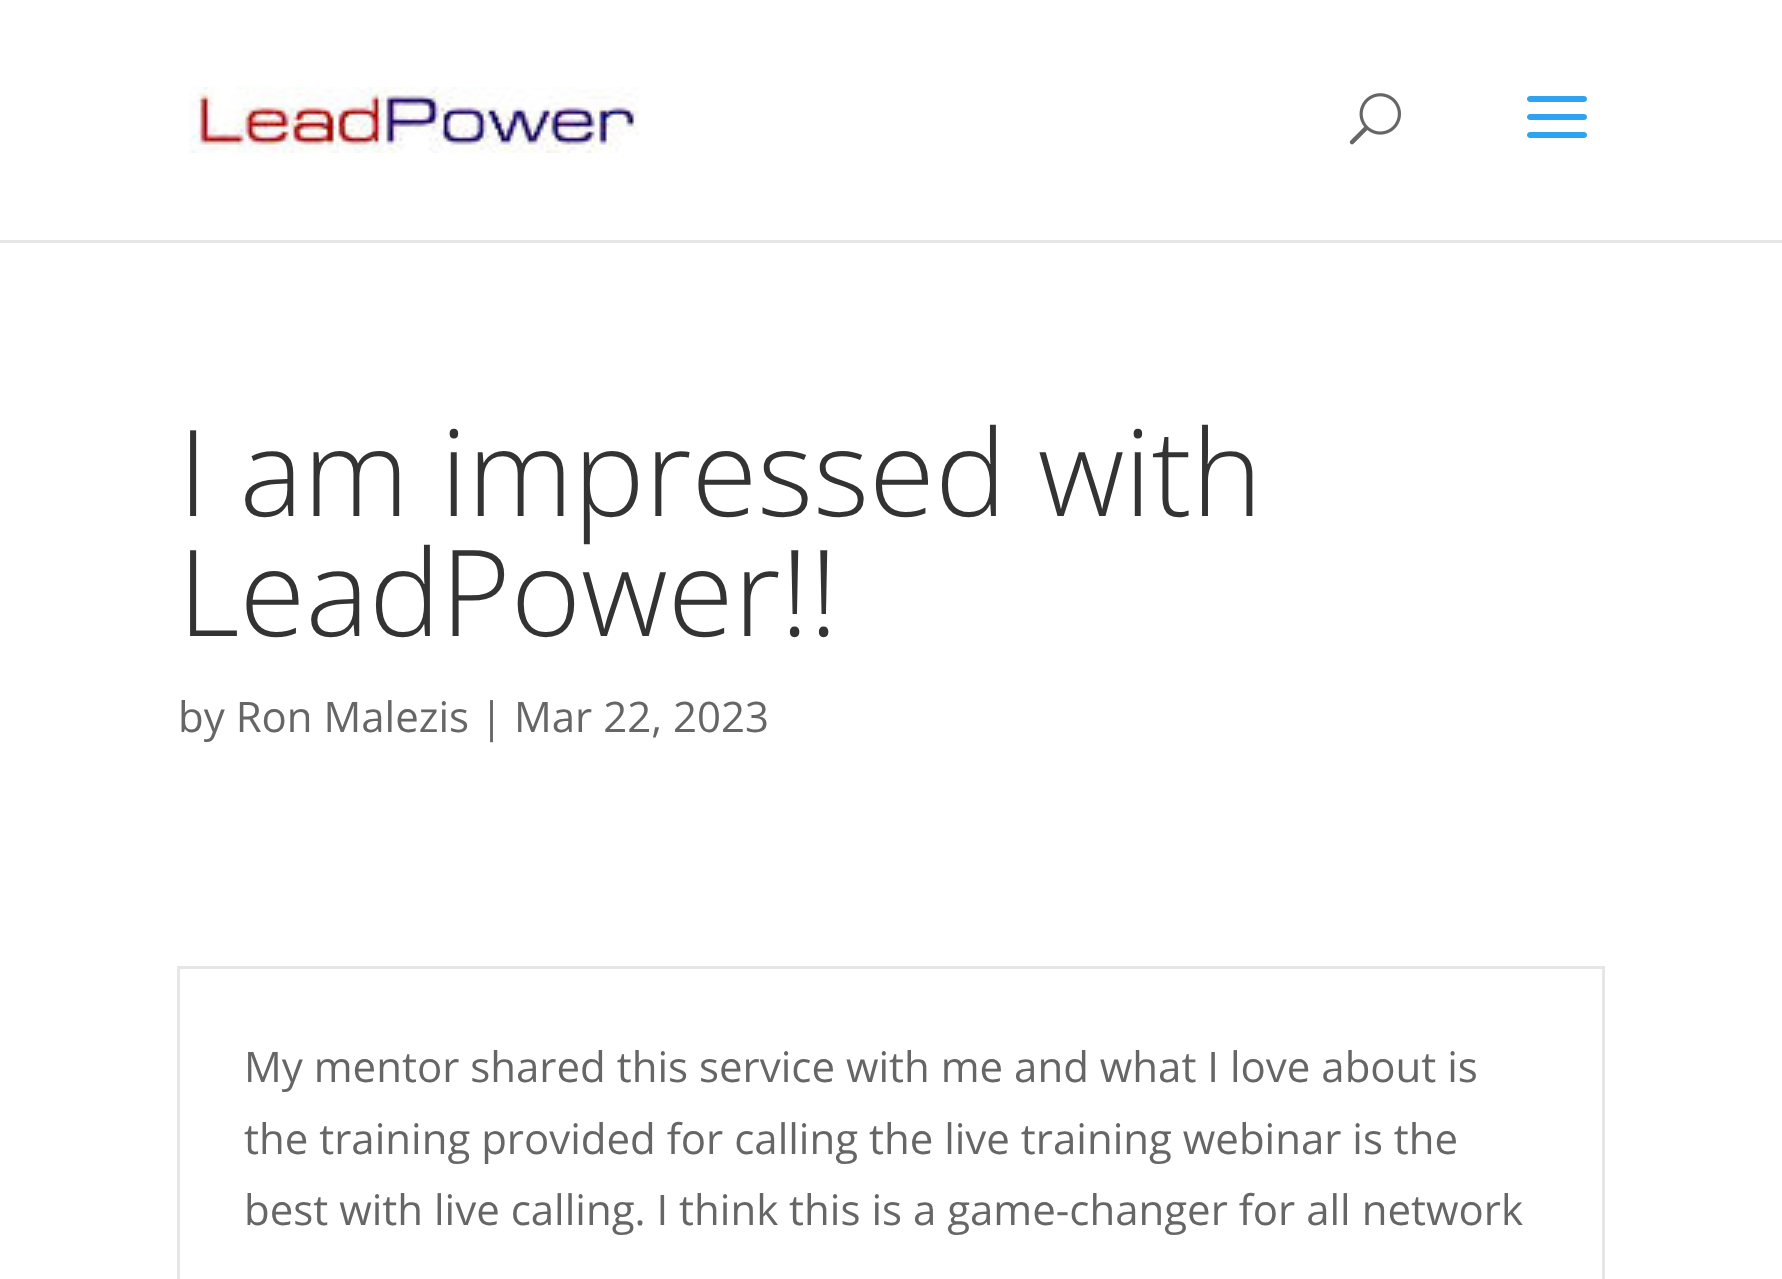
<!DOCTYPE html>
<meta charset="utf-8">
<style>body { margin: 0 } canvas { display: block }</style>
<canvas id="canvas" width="1782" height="1279"></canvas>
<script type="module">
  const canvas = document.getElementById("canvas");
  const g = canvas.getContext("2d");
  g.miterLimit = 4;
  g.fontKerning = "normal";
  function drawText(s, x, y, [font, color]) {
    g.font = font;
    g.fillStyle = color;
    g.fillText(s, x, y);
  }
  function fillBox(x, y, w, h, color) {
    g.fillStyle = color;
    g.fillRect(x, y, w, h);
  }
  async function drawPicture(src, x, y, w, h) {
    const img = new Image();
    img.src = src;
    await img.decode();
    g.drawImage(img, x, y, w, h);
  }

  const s1 = ["300 120px Open Sans", "#333333"];
  const s2 = ["42px Open Sans", "#666666"];

  fillBox(0, 0, 1782, 1279, "#FFFFFF");
  fillBox(0, 240, 1782, 3, "#E6E6E6");
  await drawPicture("pic1.png", 189, 87, 450, 66);
  await drawPicture("pic2.png", 1349, 93, 52, 52);
  await drawPicture("pic3.png", 1527, 96, 60, 42);
  drawText("I am impressed with", 178, 516, s1);
  drawText("LeadPower!!", 178, 636, s1);
  drawText("by Ron Malezis | Mar 22, 2023", 178, 732, s2);
  g.strokeStyle = "#E6E6E6";
  g.lineWidth = 3;
  g.strokeRect(178.5, 967.5, 1425, 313);
  drawText("My mentor shared this service with me and what I love about is", 244, 1082, s2);
  drawText("the training provided for calling the live training webinar is the", 244, 1154, s2);
  drawText("best with live calling. I think this is a game-changer for all network", 244, 1225, s2);
</script>
